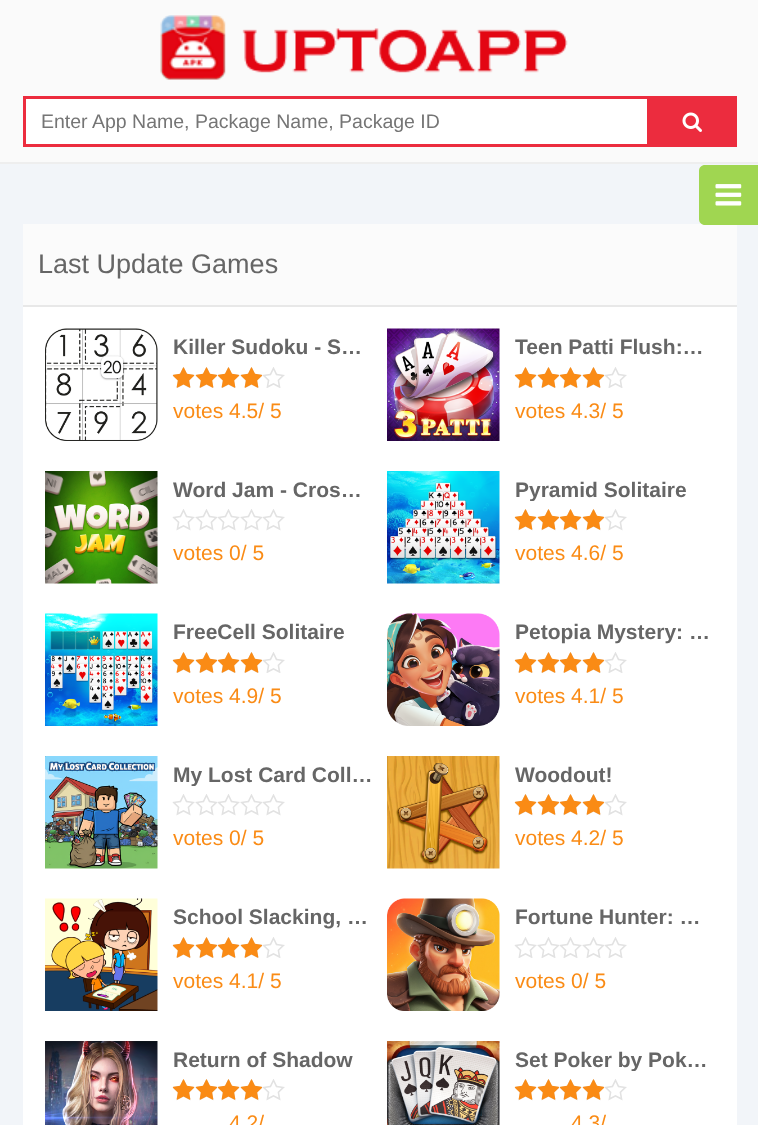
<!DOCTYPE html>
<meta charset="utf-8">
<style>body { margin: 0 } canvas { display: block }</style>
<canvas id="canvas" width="758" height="1125"></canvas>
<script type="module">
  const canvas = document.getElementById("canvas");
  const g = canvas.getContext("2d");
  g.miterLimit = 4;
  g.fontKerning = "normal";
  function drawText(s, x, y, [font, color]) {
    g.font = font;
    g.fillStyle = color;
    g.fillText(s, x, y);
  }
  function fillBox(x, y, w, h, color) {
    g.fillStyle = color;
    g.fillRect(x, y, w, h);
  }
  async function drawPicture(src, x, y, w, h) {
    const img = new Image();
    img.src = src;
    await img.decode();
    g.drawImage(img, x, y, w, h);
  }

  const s1 = ["19.5px Liberation Sans", "#757575"];
  const s2 = ["27px Liberation Sans", "#666666"];
  const s3 = ["bold 21px Liberation Sans", "#666666"];
  const s4 = ["21px Liberation Sans", "#FA8B15"];

  fillBox(0, 0, 758, 1125, "#F2F5F9");
  fillBox(0, 0, 758, 162, "#FAFAFA");
  fillBox(0, 162, 758, 2, "#EEEEEE");
  await drawPicture("pic1.png", 160, 15, 408, 65);
  fillBox(23, 96, 714, 51, "#EC2C3E");
  fillBox(26, 99, 621, 45, "#FFFFFF");
  drawText("Enter App Name, Package Name, Package ID", 41, 128, s1);
  await drawPicture("pic2.png", 682, 112, 20, 20);
  fillBox(23, 224, 714, 81, "#FBFBFB");
  g.fillStyle = "#A0D651";
  g.beginPath();
  g.moveTo(705, 165);
  g.lineTo(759, 165);
  g.lineTo(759, 225);
  g.lineTo(705, 225);
  g.bezierCurveTo(701.5, 225, 699, 222.5, 699, 219);
  g.lineTo(699, 171);
  g.bezierCurveTo(699, 167.5, 701.5, 165, 705, 165);
  g.closePath();
  g.fill();
  await drawPicture("pic3.png", 715, 184, 27, 22);
  fillBox(23, 305, 714, 2, "#E8E8E8");
  drawText("Last Update Games", 38, 273, s2);
  fillBox(23, 307, 714, 818, "#FFFFFF");
  await drawPicture("pic4.png", 45, 328, 113, 113);
  drawText("Killer Sudoku - S…", 173, 354, s3);
  await drawPicture("pic5.png", 172, 367, 113, 21);
  await drawPicture("pic6.png", 172, 367, 91, 21);
  drawText("votes 4.5/ 5", 173, 418, s4);
  await drawPicture("pic7.png", 387, 328, 113, 113);
  g.save();
  g.beginPath();
  g.rect(515, 336, 199, 23);
  g.clip();
  drawText("Teen Patti Flush:…", 515, 354, s3);
  g.restore();
  await drawPicture("pic8.png", 514, 367, 113, 21);
  await drawPicture("pic9.png", 514, 367, 91, 21);
  drawText("votes 4.3/ 5", 515, 418, s4);
  await drawPicture("pic10.png", 45, 471, 113, 113);
  drawText("Word Jam - Cros…", 173, 497, s3);
  await drawPicture("pic11.png", 172, 509, 113, 22);
  drawText("votes 0/ 5", 173, 560, s4);
  await drawPicture("pic12.png", 387, 471, 113, 113);
  g.save();
  g.beginPath();
  g.rect(515, 479, 199, 22);
  g.clip();
  drawText("Pyramid Solitaire", 515, 497, s3);
  g.restore();
  await drawPicture("pic13.png", 514, 509, 113, 22);
  await drawPicture("pic9.png", 514, 509, 91, 21);
  drawText("votes 4.6/ 5", 515, 560, s4);
  await drawPicture("pic14.png", 45, 613, 113, 113);
  drawText("FreeCell Solitaire", 173, 639, s3);
  await drawPicture("pic5.png", 172, 652, 113, 21);
  await drawPicture("pic6.png", 172, 652, 91, 21);
  drawText("votes 4.9/ 5", 173, 703, s4);
  await drawPicture("pic15.png", 387, 613, 113, 113);
  drawText("Petopia Mystery: …", 515, 639, s3);
  await drawPicture("pic8.png", 514, 652, 113, 21);
  await drawPicture("pic9.png", 514, 652, 91, 21);
  drawText("votes 4.1/ 5", 515, 703, s4);
  await drawPicture("pic16.png", 45, 756, 113, 113);
  g.save();
  g.beginPath();
  g.rect(173, 764, 199, 22);
  g.clip();
  drawText("My Lost Card Coll…", 173, 782, s3);
  g.restore();
  await drawPicture("pic11.png", 172, 794, 113, 22);
  drawText("votes 0/ 5", 173, 845, s4);
  await drawPicture("pic17.png", 387, 756, 113, 113);
  drawText("Woodout!", 515, 782, s3);
  await drawPicture("pic13.png", 514, 794, 113, 22);
  await drawPicture("pic9.png", 514, 794, 91, 21);
  drawText("votes 4.2/ 5", 515, 845, s4);
  await drawPicture("pic18.png", 45, 898, 113, 113);
  drawText("School Slacking, …", 173, 924, s3);
  await drawPicture("pic5.png", 172, 937, 113, 21);
  await drawPicture("pic6.png", 172, 937, 91, 21);
  drawText("votes 4.1/ 5", 173, 988, s4);
  await drawPicture("pic19.png", 387, 898, 113, 113);
  drawText("Fortune Hunter: …", 515, 924, s3);
  await drawPicture("pic8.png", 514, 937, 113, 21);
  drawText("votes 0/ 5", 515, 988, s4);
  await drawPicture("pic20.png", 45, 1041, 113, 84);
  drawText("Return of Shadow", 173, 1067, s3);
  await drawPicture("pic11.png", 172, 1079, 113, 22);
  await drawPicture("pic6.png", 172, 1079, 91, 21);
  drawText("4.2/", 229, 1130, s4);
  await drawPicture("pic21.png", 387, 1041, 113, 84);
  g.save();
  g.beginPath();
  g.rect(515, 1049, 199, 22);
  g.clip();
  drawText("Set Poker by Pok…", 515, 1067, s3);
  g.restore();
  await drawPicture("pic13.png", 514, 1079, 113, 22);
  await drawPicture("pic9.png", 514, 1079, 91, 21);
  drawText("4.3/", 571, 1130, s4);
</script>
